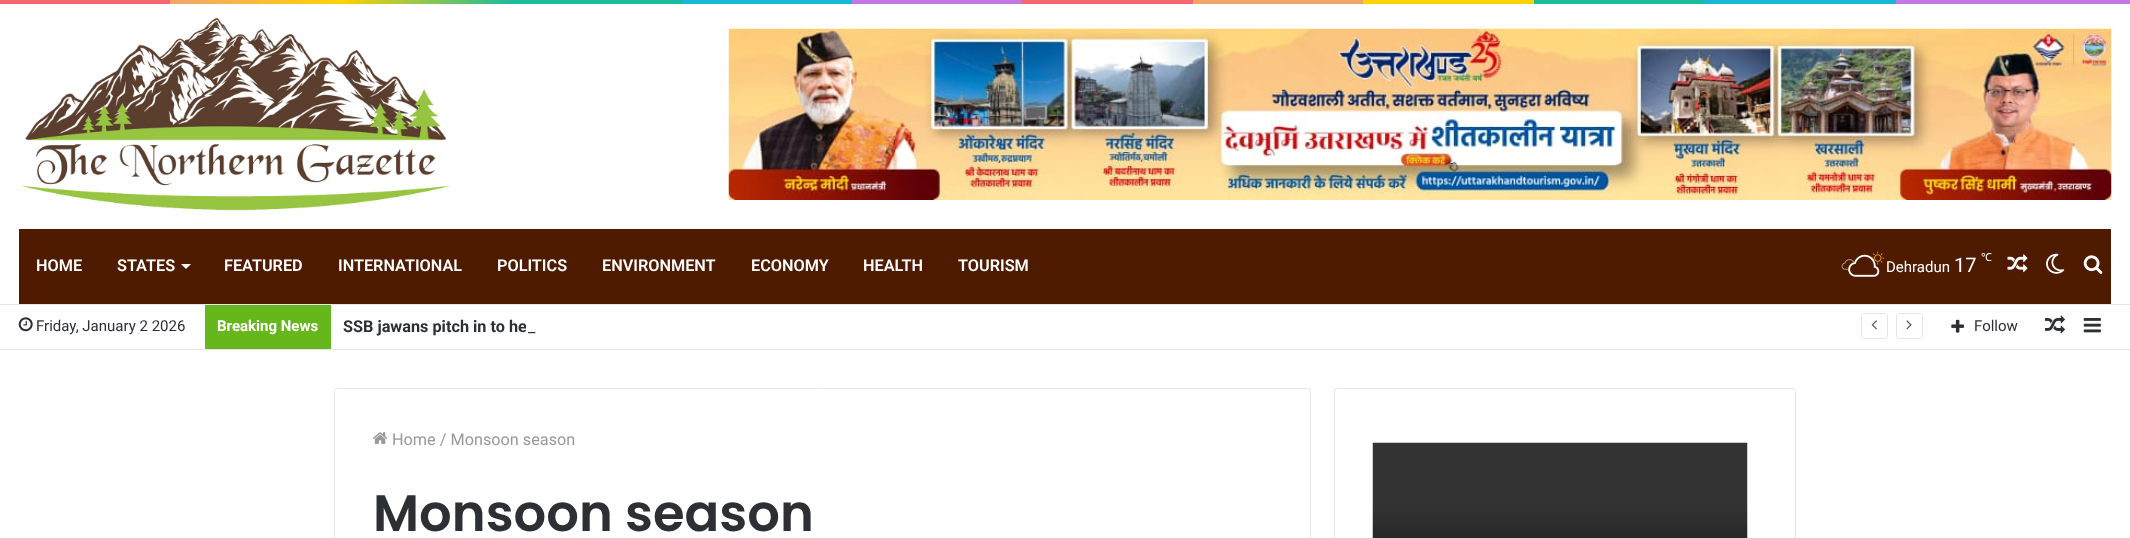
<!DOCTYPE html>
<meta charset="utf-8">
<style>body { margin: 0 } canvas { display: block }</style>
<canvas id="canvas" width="2130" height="538"></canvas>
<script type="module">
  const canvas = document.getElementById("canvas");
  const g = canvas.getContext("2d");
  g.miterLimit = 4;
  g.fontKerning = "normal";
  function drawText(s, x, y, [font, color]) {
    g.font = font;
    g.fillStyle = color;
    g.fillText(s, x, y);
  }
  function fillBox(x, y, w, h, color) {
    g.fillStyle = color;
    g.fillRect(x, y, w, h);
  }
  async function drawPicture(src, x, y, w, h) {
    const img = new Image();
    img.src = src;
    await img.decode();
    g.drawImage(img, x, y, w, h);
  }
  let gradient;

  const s1 = ["600 16.25px Roboto", "#FFFFFF"];
  const s2 = ["15px Roboto", "#FFFFFF"];
  const s3 = ["20px Roboto", "#FFFFFF"];
  const s4 = ["11px Noto Sans", "#FFFFFF"];
  const s5 = ["15px Roboto", "#2C2F34"];
  const s6 = ["bold 15px Roboto", "#FFFFFF"];
  const s7 = ["bold 16.25px Roboto", "#2C2F34"];
  const s8 = ["16.25px Roboto", "#2C2F34"];
  const s9 = ["16.25px Roboto", "#999999"];
  const s10 = ["600 51.25px Poppins", "#2C2F34"];

  fillBox(0, 0, 2130, 538, "#FFFFFF");
  gradient = g.createLinearGradient(0, 1.9, 2130, 1.9);
  gradient.addColorStop(0, "#F76570");
  gradient.addColorStop(0.08, "#F76570");
  gradient.addColorStop(0.08, "#F3A46B");
  gradient.addColorStop(0.16, "#FFD205");
  gradient.addColorStop(0.24, "#1BBC9B");
  gradient.addColorStop(0.32, "#1BBC9B");
  gradient.addColorStop(0.32, "#14B9D5");
  gradient.addColorStop(0.4, "#14B9D5");
  gradient.addColorStop(0.4, "#C377E4");
  gradient.addColorStop(0.48, "#C377E4");
  gradient.addColorStop(0.48, "#F76570");
  gradient.addColorStop(0.56, "#F76570");
  gradient.addColorStop(0.56, "#F3A46B");
  gradient.addColorStop(0.64, "#F3A46B");
  gradient.addColorStop(0.64, "#FFD205");
  gradient.addColorStop(0.72, "#FFD205");
  gradient.addColorStop(0.72, "#1BBC9B");
  gradient.addColorStop(0.8, "#1BBC9B");
  gradient.addColorStop(0.8, "#14B9D5");
  gradient.addColorStop(0.89, "#14B9D5");
  gradient.addColorStop(0.89, "#C377E4");
  gradient.addColorStop(1, "#C377E4");
  g.fillStyle = gradient;
  g.fillRect(0, 0, 2130, 4);
  await drawPicture("pic1.png", 21, 17, 430, 194);
  await drawPicture("pic2.png", 728, 28, 1384, 172);
  fillBox(19, 229, 2092, 75, "#4F1B00");
  drawText("HOME", 36, 271, s1);
  drawText("STATES", 117, 271, s1);
  g.beginPath();
  g.moveTo(181, 264);
  g.lineTo(191, 264);
  g.lineTo(186, 269);
  g.closePath();
  g.fill();
  drawText("FEATURED", 224, 271, s1);
  drawText("INTERNATIONAL", 338, 271, s1);
  drawText("POLITICS", 497, 271, s1);
  drawText("ENVIRONMENT", 602, 271, s1);
  drawText("ECONOMY", 751, 271, s1);
  drawText("HEALTH", 863, 271, s1);
  drawText("TOURISM", 958, 271, s1);
  await drawPicture("pic3.png", 1871, 251, 14, 14);
  await drawPicture("pic6.png", 1841, 259, 14, 11);
  await drawPicture("pic5.png", 1848, 257, 27, 13);
  await drawPicture("pic4.png", 1848, 254, 32, 23);
  drawText("Dehradun", 1886, 272, s2);
  drawText("17", 1954, 272, s3);
  drawText("℃", 1981, 261, s4);
  await drawPicture("pic7.png", 2007, 254, 21, 19);
  await drawPicture("pic8.png", 2046, 253, 19, 21);
  await drawPicture("pic9.png", 2083, 255, 20, 19);
  fillBox(0, 304, 2130, 1, "#E6E6E6");
  fillBox(0, 349, 2130, 1, "#E6E6E6");
  await drawPicture("pic10.png", 18, 317, 15, 15);
  drawText("Friday, January 2 2026", 36, 331, s5);
  fillBox(205, 305, 126, 44, "#66B71B");
  drawText("Breaking News", 217, 331, s6);
  drawText("SSB jawans pitch in to he", 343, 332, s7);
  fillBox(526, 325, 1, 6, "#FFFFFF");
  drawText("_", 528, 332, s8);
  g.beginPath();
  g.roundRect(1861.5, 313.5, 26, 25, 2);
  g.strokeStyle = "#E6E6E6";
  g.stroke();
  await drawPicture("pic11.png", 1871, 320, 6, 10);
  g.beginPath();
  g.roundRect(1896.5, 313.5, 26, 25, 2);
  g.stroke();
  await drawPicture("pic12.png", 1906, 320, 6, 10);
  await drawPicture("pic13.png", 1951, 319, 14, 14);
  drawText("Follow", 1974, 331, s5);
  await drawPicture("pic14.png", 2045, 315, 20, 19);
  await drawPicture("pic15.png", 2083, 318, 18, 15);
  g.beginPath();
  g.moveTo(336.5, 388.5);
  g.lineTo(1308.5, 388.5);
  g.bezierCurveTo(1309.5, 388.5, 1310.5, 389.5, 1310.5, 390.5);
  g.lineTo(1310.5, 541.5);
  g.lineTo(334.5, 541.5);
  g.lineTo(334.5, 390.5);
  g.bezierCurveTo(334.5, 389.5, 335.5, 388.5, 336.5, 388.5);
  g.closePath();
  g.stroke();
  await drawPicture("pic16.png", 372, 432, 16, 12);
  drawText("Home / Monsoon season", 392, 445, s9);
  drawText("Monsoon season", 373, 531, s10);
  g.beginPath();
  g.roundRect(1334.5, 388.5, 461, 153, 2);
  g.stroke();
  await drawPicture("pic17.png", 1372, 442, 376, 96);
</script>
